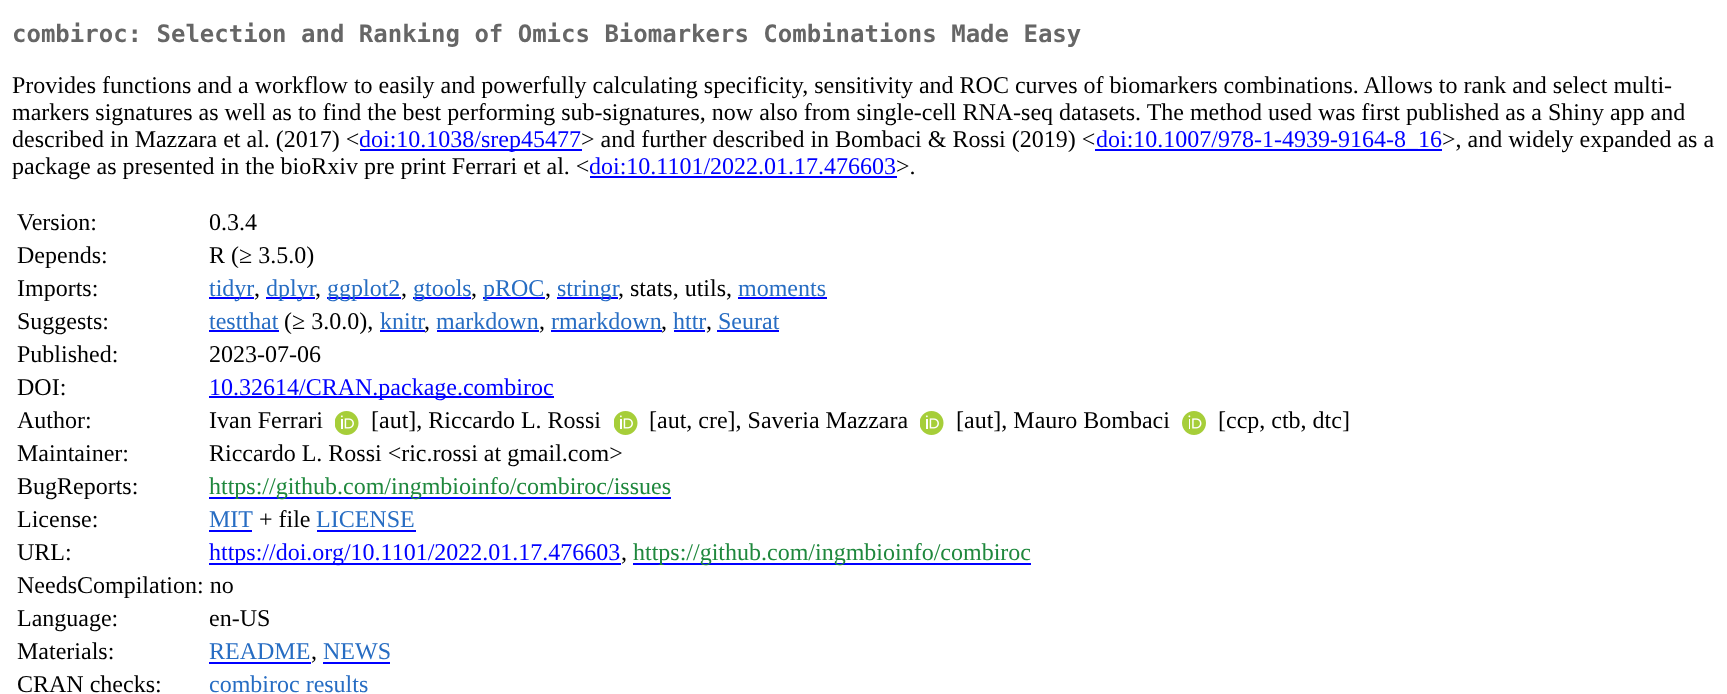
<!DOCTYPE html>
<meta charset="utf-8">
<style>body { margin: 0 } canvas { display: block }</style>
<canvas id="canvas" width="1727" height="694"></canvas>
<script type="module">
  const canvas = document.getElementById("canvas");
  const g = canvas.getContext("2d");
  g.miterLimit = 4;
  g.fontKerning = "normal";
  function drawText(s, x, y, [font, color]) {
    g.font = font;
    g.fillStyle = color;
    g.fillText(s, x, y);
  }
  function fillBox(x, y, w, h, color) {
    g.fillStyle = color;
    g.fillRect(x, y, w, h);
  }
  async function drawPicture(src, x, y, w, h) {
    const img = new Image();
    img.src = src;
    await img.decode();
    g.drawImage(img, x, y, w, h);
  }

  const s1 = ["bold 24px DejaVu Sans Mono", "#666666"];
  const s2 = ["24px Liberation Serif", "#000000"];
  const s3 = ["24px Liberation Serif", "#0000FF"];
  const s4 = ["24px Liberation Serif", "#276DC3"];
  const s5 = ["24px Liberation Serif", "#1F883D"];

  fillBox(0, 0, 1727, 694, "#FFFFFF");
  drawText("combiroc: Selection and Ranking of Omics Biomarkers Combinations Made Easy", 12, 42, s1);
  drawText("Provides functions and a workflow to easily and powerfully calculating specificity, sensitivity and ROC curves of biomarkers combinations. Allows to rank and select multi-", 12, 93, s2);
  drawText("markers signatures as well as to find the best performing sub-signatures, now also from single-cell RNA-seq datasets. The method used was first published as a Shiny app and", 12, 120, s2);
  drawText("described in Mazzara et al. (2017) <", 12, 147, s2);
  fillBox(360, 149, 222, 2, "#0000FF");
  drawText("doi:10.1038/srep45477", 359, 147, s3);
  drawText("> and further described in Bombaci & Rossi (2019) <", 581, 147, s2);
  fillBox(1095, 149, 347, 2, "#0000FF");
  drawText("doi:10.1007/978-1-4939-9164-8_16", 1096, 147, s3);
  drawText(">, and widely expanded as a", 1442, 147, s2);
  drawText("package as presented in the bioRxiv pre print Ferrari et al. <", 12, 174, s2);
  drawText("doi:10.1101/2022.01.17.476603", 589, 174, s3);
  fillBox(590, 176, 307, 2, "#0000FF");
  drawText(">.", 896, 174, s2);
  drawText("Version:", 17, 230, s2);
  drawText("0.3.4", 209, 230, s2);
  drawText("Depends:", 17, 263, s2);
  drawText("R (≥ 3.5.0)", 209, 263, s2);
  drawText("Imports:", 17, 296, s2);
  fillBox(209, 297, 45, 2, "#0000FF");
  drawText("tidyr", 209, 296, s4);
  drawText(",", 254, 296, s2);
  fillBox(266, 297, 49, 2, "#0000FF");
  drawText("dplyr", 266, 296, s4);
  drawText(",", 315, 296, s2);
  fillBox(327, 297, 74, 2, "#0000FF");
  drawText("ggplot2", 327, 296, s4);
  drawText(",", 401, 296, s2);
  fillBox(413, 297, 58, 2, "#0000FF");
  drawText("gtools", 413, 296, s4);
  drawText(",", 471, 296, s2);
  fillBox(483, 297, 62, 2, "#0000FF");
  drawText("pROC", 483, 296, s4);
  drawText(",", 545, 296, s2);
  fillBox(557, 297, 61, 2, "#0000FF");
  drawText("stringr", 557, 296, s4);
  drawText(", stats, utils,", 618, 296, s2);
  drawText("moments", 738, 296, s4);
  fillBox(738, 297, 89, 2, "#0000FF");
  drawText("Suggests:", 17, 329, s2);
  drawText("testthat", 209, 329, s4);
  fillBox(209, 330, 70, 2, "#0000FF");
  drawText("(≥ 3.0.0),", 284, 329, s2);
  drawText("knitr", 380, 329, s4);
  fillBox(380, 330, 45, 2, "#0000FF");
  drawText(",", 424, 329, s2);
  drawText("markdown", 436, 329, s4);
  fillBox(437, 330, 102, 2, "#0000FF");
  drawText(",", 539, 329, s2);
  drawText("rmarkdown", 551, 329, s4);
  fillBox(551, 330, 111, 2, "#0000FF");
  drawText(",", 661, 329, s2);
  drawText("httr", 673, 329, s4);
  fillBox(674, 330, 31, 2, "#0000FF");
  drawText(",", 706, 329, s2);
  drawText("Seurat", 718, 329, s4);
  fillBox(717, 330, 62, 2, "#0000FF");
  drawText("Published:", 17, 362, s2);
  drawText("2023-07-06", 209, 362, s2);
  drawText("DOI:", 17, 395, s2);
  fillBox(209, 396, 345, 2, "#0000FF");
  drawText("10.32614/CRAN.package.combiroc", 209, 395, s3);
  drawText("Author:", 17, 428, s2);
  drawText("Ivan Ferrari", 209, 428, s2);
  await drawPicture("pic1.png", 335, 411, 24, 24);
  drawText("[aut], Riccardo L. Rossi", 371, 428, s2);
  await drawPicture("pic1.png", 614, 411, 24, 24);
  drawText("[aut, cre], Saveria Mazzara", 649, 428, s2);
  await drawPicture("pic1.png", 920, 411, 24, 24);
  drawText("[aut], Mauro Bombaci", 956, 428, s2);
  await drawPicture("pic2.png", 1182, 411, 24, 24);
  drawText("[ccp, ctb, dtc]", 1218, 428, s2);
  drawText("Maintainer:", 17, 461, s2);
  drawText("Riccardo L. Rossi <ric.rossi at gmail.com>", 209, 461, s2);
  drawText("BugReports:", 17, 494, s2);
  fillBox(209, 497, 462, 2, "#0000FF");
  drawText("https://github.com/ingmbioinfo/combiroc/issues", 209, 494, s5);
  drawText("License:", 17, 527, s2);
  drawText("MIT", 209, 527, s4);
  fillBox(209, 530, 43, 2, "#0000FF");
  drawText("+ file", 259, 527, s2);
  drawText("LICENSE", 316, 527, s4);
  fillBox(317, 530, 99, 2, "#0000FF");
  drawText("URL:", 17, 560, s2);
  fillBox(209, 563, 412, 2, "#0000FF");
  drawText("https://doi.org/10.1101/2022.01.17.476603", 209, 560, s3);
  drawText(",", 621, 560, s2);
  fillBox(633, 563, 398, 2, "#0000FF");
  drawText("https://github.com/ingmbioinfo/combiroc", 633, 560, s5);
  drawText("NeedsCompilation: no", 17, 593, s2);
  drawText("Language:", 17, 626, s2);
  drawText("en-US", 209, 626, s2);
  drawText("Materials:", 17, 659, s2);
  drawText("README", 209, 659, s4);
  fillBox(209, 662, 102, 2, "#0000FF");
  drawText(",", 311, 659, s2);
  drawText("NEWS", 323, 659, s4);
  fillBox(323, 662, 67, 2, "#0000FF");
  drawText("CRAN checks:", 17, 692, s2);
  drawText("combiroc results", 209, 692, s4);
</script>
